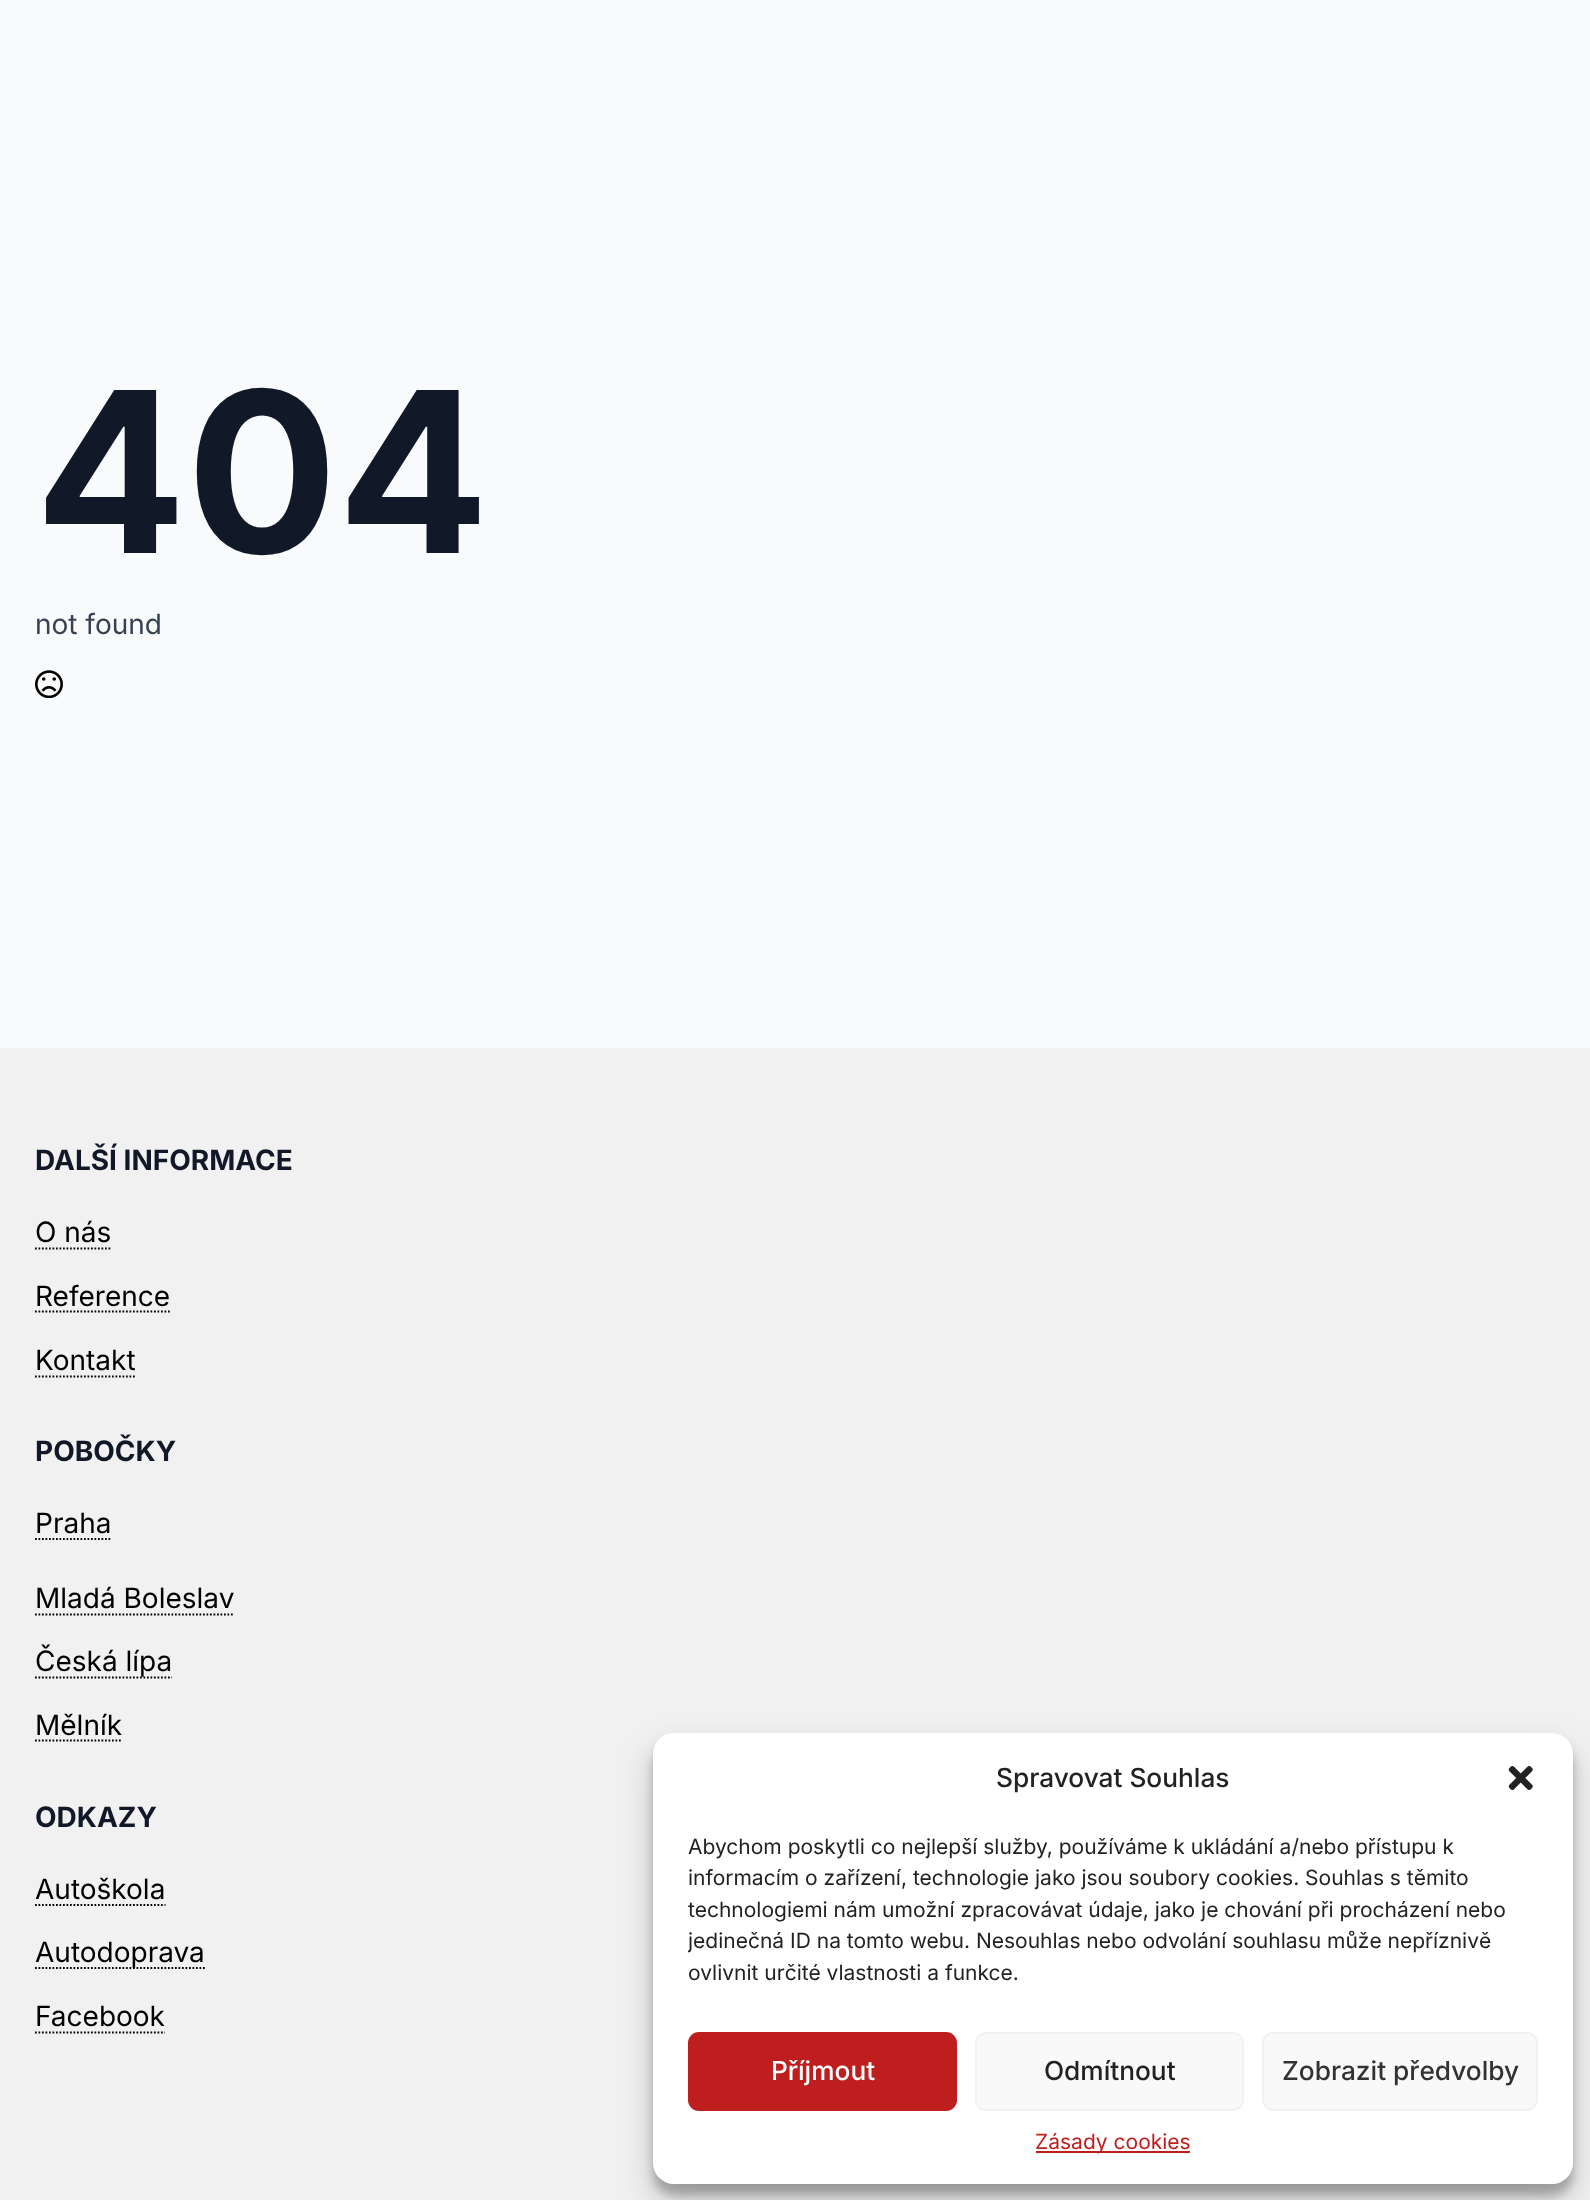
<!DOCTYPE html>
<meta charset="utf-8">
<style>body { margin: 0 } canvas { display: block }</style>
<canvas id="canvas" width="1590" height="2200"></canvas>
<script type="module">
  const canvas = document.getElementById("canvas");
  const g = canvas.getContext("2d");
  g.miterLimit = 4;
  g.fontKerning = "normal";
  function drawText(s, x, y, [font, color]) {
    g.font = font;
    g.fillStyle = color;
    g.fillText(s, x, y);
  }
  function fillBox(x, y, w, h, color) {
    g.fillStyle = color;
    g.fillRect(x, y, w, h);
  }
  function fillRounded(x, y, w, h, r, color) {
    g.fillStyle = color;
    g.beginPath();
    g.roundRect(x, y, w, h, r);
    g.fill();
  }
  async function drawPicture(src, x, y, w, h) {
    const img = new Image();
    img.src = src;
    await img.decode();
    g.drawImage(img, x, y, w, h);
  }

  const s1 = ["bold 224px Inter", "#111827"];
  const s2 = ["28px Inter", "#374151"];
  const s3 = ["bold 28px Inter", "#111827"];
  const s4 = ["28px Inter", "#000000"];
  const s5 = ["500 26.25px Inter", "#222222"];
  const s6 = ["21px Inter", "#222222"];
  const s7 = ["500 26.25px Inter", "#FFFFFF"];
  const s8 = ["500 26.25px Inter", "#333333"];
  const s9 = ["21px Inter", "#BE1E1E"];

  fillBox(0, 0, 1590, 2200, "#F9FAFB");
  drawText("404", 35, 553, s1);
  drawText("not found", 35, 634, s2);
  await drawPicture("pic1.png", 35, 670, 28, 28);
  fillBox(0, 1048, 1590, 1152, "#F1F1F1");
  drawText("DALŠÍ INFORMACE", 35, 1170, s3);
  drawText("O nás", 35, 1242, s4);
  g.beginPath();
  g.moveTo(35, 1248.5);
  g.lineTo(111.5, 1248.5);
  g.strokeStyle = "#000000";
  g.lineWidth = 1.8;
  g.setLineDash([1.75, 1.75]);
  g.stroke();
  drawText("Reference", 35, 1306, s4);
  g.beginPath();
  g.moveTo(35, 1311.5);
  g.lineTo(170, 1311.5);
  g.stroke();
  drawText("Kontakt", 35, 1370, s4);
  g.beginPath();
  g.moveTo(35, 1376.5);
  g.lineTo(135.5, 1376.5);
  g.stroke();
  drawText("POBOČKY", 35, 1461, s3);
  drawText("Praha", 35, 1533, s4);
  g.beginPath();
  g.moveTo(35, 1539);
  g.lineTo(111.5, 1539);
  g.stroke();
  drawText("Mladá Boleslav", 35, 1608, s4);
  g.beginPath();
  g.moveTo(35, 1614.5);
  g.lineTo(234.5, 1614.5);
  g.stroke();
  g.beginPath();
  g.moveTo(35, 1677.5);
  g.lineTo(172, 1677.5);
  g.stroke();
  drawText("Česká lípa", 35, 1671, s4);
  drawText("Mělník", 35, 1735, s4);
  g.beginPath();
  g.moveTo(35, 1740.5);
  g.lineTo(122, 1740.5);
  g.stroke();
  drawText("ODKAZY", 35, 1827, s3);
  drawText("Autoškola", 35, 1899, s4);
  g.beginPath();
  g.moveTo(35, 1905);
  g.lineTo(165.5, 1905);
  g.stroke();
  g.beginPath();
  g.moveTo(35, 1968);
  g.lineTo(205, 1968);
  g.stroke();
  drawText("Autodoprava", 35, 1962, s4);
  drawText("Facebook", 35, 2026, s4);
  g.beginPath();
  g.moveTo(35, 2032.5);
  g.lineTo(165, 2032.5);
  g.stroke();
  g.fillStyle = "rgba(0, 0, 0, 0.23)";
  g.filter = "blur(5px)";
  g.beginPath();
  g.roundRect(653, 1743, 920, 452, 21);
  g.fill();
  g.filter = "none";
  g.fillStyle = "rgba(0, 0, 0, 0.19)";
  g.filter = "blur(17.5px)";
  g.beginPath();
  g.roundRect(653, 1750, 920, 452, 21);
  g.fill();
  g.filter = "none";
  fillRounded(653, 1733, 920, 451, 21, "#FFFFFF");
  drawText("Spravovat Souhlas", 996, 1787, s5);
  await drawPicture("pic2.png", 1508, 1766, 25, 24);
  drawText("Abychom poskytli co nejlepší služby, používáme k ukládání a/nebo přístupu k", 688, 1854, s6);
  drawText("informacím o zařízení, technologie jako jsou soubory cookies. Souhlas s těmito", 688, 1885, s6);
  drawText("technologiemi nám umožní zpracovávat údaje, jako je chování při procházení nebo", 688, 1917, s6);
  g.save();
  g.beginPath();
  g.rect(688, 1831, 850, 166);
  g.clip();
  drawText("jedinečná ID na tomto webu. Nesouhlas nebo odvolání souhlasu může nepříznivě", 688, 1948, s6);
  g.restore();
  drawText("ovlivnit určité vlastnosti a funkce.", 688, 1980, s6);
  g.fillStyle = "#BE1E1E";
  g.beginPath();
  g.roundRect(689, 2033, 267, 77, 10);
  g.fill();
  g.strokeStyle = "#BE1E1E";
  g.lineWidth = 2;
  g.setLineDash([]);
  g.stroke();
  drawText("Příjmout", 771, 2080, s7);
  g.fillStyle = "#F9F9F9";
  g.beginPath();
  g.roundRect(976, 2033, 267, 77, 10);
  g.fill();
  g.strokeStyle = "#F2F2F2";
  g.stroke();
  drawText("Odmítnout", 1044, 2080, s5);
  g.fillStyle = "#F9F9F9";
  g.beginPath();
  g.roundRect(1263, 2033, 274, 77, 10);
  g.fill();
  g.stroke();
  drawText("Zobrazit předvolby", 1282, 2080, s8);
  fillBox(1036, 2151, 154, 2, "#BE1E1E");
  drawText("Zásady cookies", 1035, 2149, s9);
</script>
